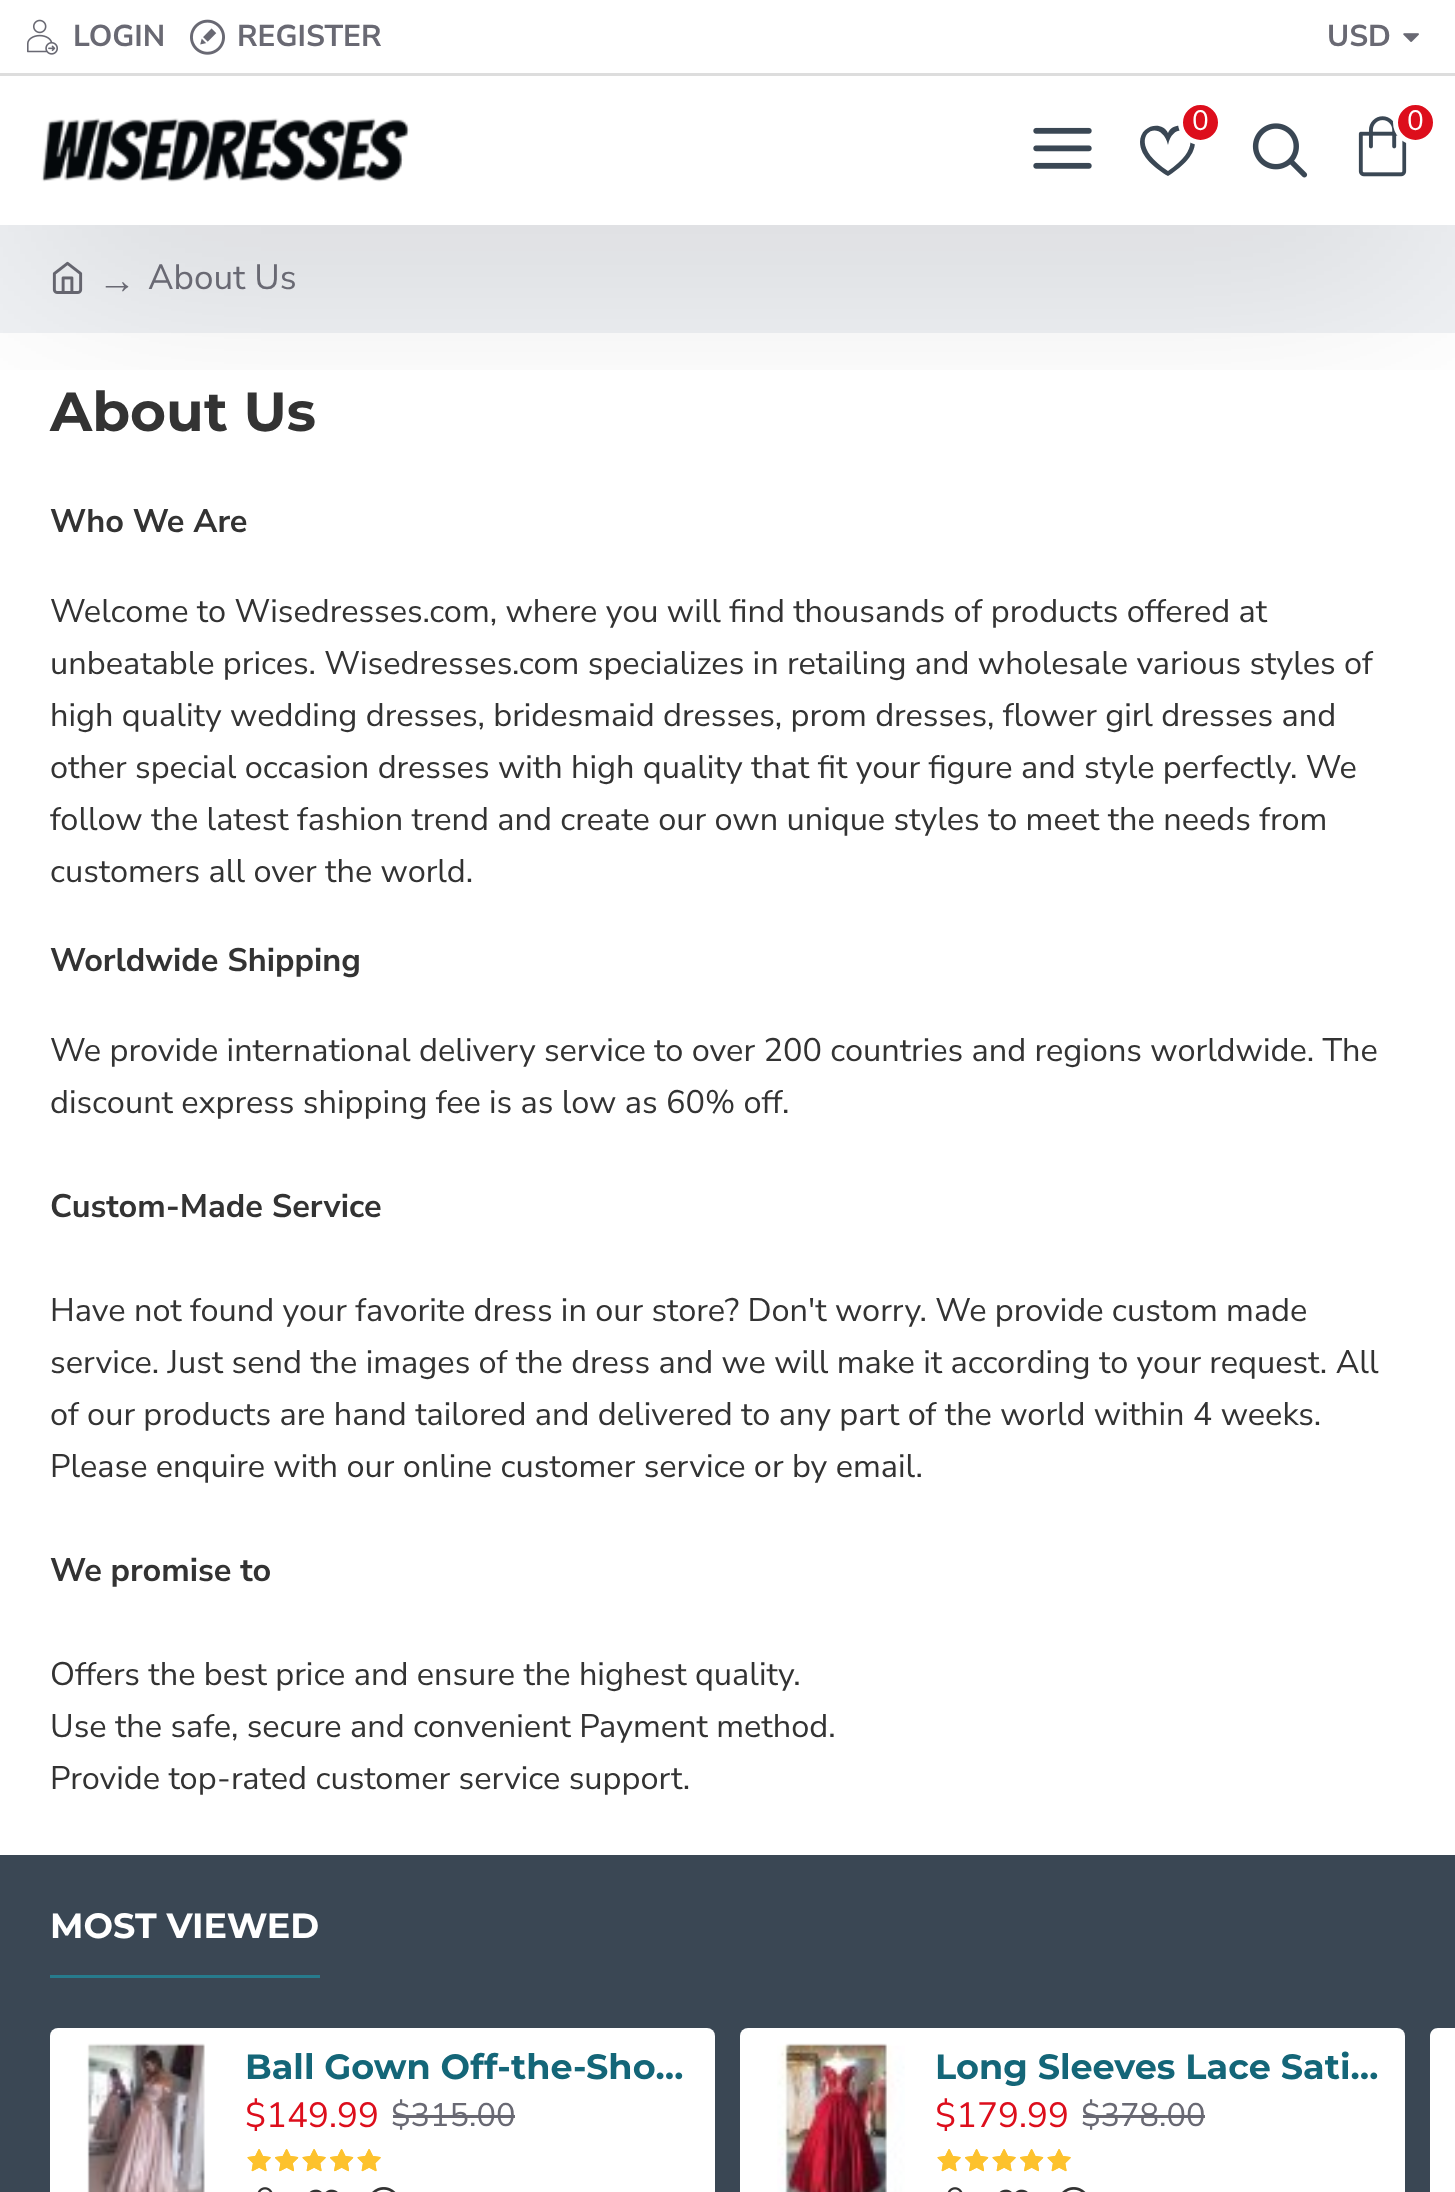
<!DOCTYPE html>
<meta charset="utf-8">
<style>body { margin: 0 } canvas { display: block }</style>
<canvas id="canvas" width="1455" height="2192"></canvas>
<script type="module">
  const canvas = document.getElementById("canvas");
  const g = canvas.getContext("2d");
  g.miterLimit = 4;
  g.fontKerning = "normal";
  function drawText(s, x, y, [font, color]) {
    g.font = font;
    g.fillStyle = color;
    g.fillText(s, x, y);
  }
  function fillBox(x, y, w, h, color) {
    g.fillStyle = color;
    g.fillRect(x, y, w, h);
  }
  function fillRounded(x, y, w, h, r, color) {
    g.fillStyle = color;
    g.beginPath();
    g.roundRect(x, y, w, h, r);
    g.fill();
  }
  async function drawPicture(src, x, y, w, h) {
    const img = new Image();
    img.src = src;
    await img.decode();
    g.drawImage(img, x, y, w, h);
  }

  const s1 = ["bold 30px Nunito Sans", "#696973"];
  const s2 = ["28px Nunito Sans", "#FFFFFF"];
  const s3 = ["38px Liberation Serif", "#696973"];
  const s4 = ["35px Nunito Sans", "#696973"];
  const s5 = ["bold 55px Montserrat", "#333333"];
  const s6 = ["bold 32.5px Nunito Sans", "#333333"];
  const s7 = ["32.5px Nunito Sans", "#333333"];
  const s8 = ["bold 35px Montserrat", "#FFFFFF"];
  const s9 = ["bold 35px Montserrat", "#146678"];
  const s10 = ["35px Nunito Sans", "#DD0E1C"];
  const s11 = ["32.5px Nunito Sans", "#696973"];

  fillBox(0, 0, 1455, 2192, "#FFFFFF");
  fillBox(0, 225, 1455, 108, "#F0F2F5");
  await drawPicture("pic8.png", 52, 261, 31, 33);
  g.save();
  g.beginPath();
  g.rect(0, 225, 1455, 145);
  g.clip();
  g.fillStyle = "rgba(0, 0, 0, 0.2)";
  g.filter = "blur(112.5px)";
  g.beginPath();
  g.rect(25, 138, 1405, 100);
  g.fill();
  g.filter = "none";
  g.restore();
  fillBox(0, 0, 1455, 73, "#FFFFFF");
  fillBox(0, 73, 1455, 3, "#DDDDDD");
  await drawPicture("pic1.png", 27, 19, 31, 36);
  drawText("LOGIN", 73, 46, s1);
  await drawPicture("pic2.png", 190, 19, 35, 36);
  drawText("REGISTER", 237, 46, s1);
  drawText("USD", 1327, 46, s1);
  await drawPicture("pic3.png", 1403, 33, 16, 9);
  await drawPicture("pic4.png", 41, 118, 369, 64);
  g.fillStyle = "#3A4754";
  g.beginPath();
  g.moveTo(1168, 145);
  g.bezierCurveTo(1175, 113, 1215, 140, 1168, 171);
  g.bezierCurveTo(1120, 140, 1160, 113, 1168, 145);
  g.closePath();
  g.moveTo(1140, 142);
  g.bezierCurveTo(1140, 157, 1156, 169, 1168, 176);
  g.bezierCurveTo(1179, 169, 1195, 157, 1195, 142);
  g.bezierCurveTo(1195, 138, 1194, 135, 1192, 132);
  g.bezierCurveTo(1186, 124, 1172, 123, 1168, 133);
  g.bezierCurveTo(1162, 120, 1140, 125, 1140, 142);
  g.closePath();
  g.fill();
  g.fillStyle = "#DD0E1C";
  g.beginPath();
  g.arc(1200.5, 122.5, 20, 0, Math.PI * 2);
  g.fill();
  g.strokeStyle = "#FFFFFF";
  g.lineWidth = 5;
  g.stroke();
  drawText("0", 1192, 130, s2);
  await drawPicture("pic5.png", 1358, 116, 49, 61);
  g.fillStyle = "#DD0E1C";
  g.beginPath();
  g.arc(1415.5, 122.5, 20, 0, Math.PI * 2);
  g.fill();
  g.stroke();
  drawText("0", 1407, 130, s2);
  await drawPicture("pic6.png", 1033, 127, 59, 42);
  await drawPicture("pic7.png", 1252, 123, 56, 55);
  drawText("→", 98, 293, s3);
  drawText("About Us", 148, 289, s4);
  drawText("About Us", 50, 431, s5);
  drawText("Who We Are", 50, 532, s6);
  drawText("Welcome to Wisedresses.com, where you will find thousands of products offered at", 50, 622, s7);
  drawText("unbeatable prices. Wisedresses.com specializes in retailing and wholesale various styles of", 50, 674, s7);
  drawText("high quality wedding dresses, bridesmaid dresses, prom dresses, flower girl dresses and", 50, 726, s7);
  drawText("other special occasion dresses with high quality that fit your figure and style perfectly. We", 50, 778, s7);
  drawText("follow the latest fashion trend and create our own unique styles to meet the needs from", 50, 830, s7);
  drawText("customers all over the world.", 50, 882, s7);
  drawText("Worldwide Shipping", 50, 971, s6);
  drawText("We provide international delivery service to over 200 countries and regions worldwide. The", 50, 1061, s7);
  drawText("discount express shipping fee is as low as 60% off.", 50, 1113, s7);
  drawText("Custom-Made Service", 50, 1217, s6);
  drawText("Have not found your favorite dress in our store? Don't worry. We provide custom made", 50, 1321, s7);
  drawText("service. Just send the images of the dress and we will make it according to your request. All", 50, 1373, s7);
  drawText("of our products are hand tailored and delivered to any part of the world within 4 weeks.", 50, 1425, s7);
  drawText("Please enquire with our online customer service or by email.", 50, 1477, s7);
  drawText("We promise to", 50, 1581, s6);
  drawText("Offers the best price and ensure the highest quality.", 50, 1685, s7);
  drawText("Use the safe, secure and convenient Payment method.", 50, 1737, s7);
  drawText("Provide top-rated customer service support.", 50, 1789, s7);
  fillBox(0, 1855, 1455, 337, "#3A4754");
  fillBox(50, 1975, 270, 3, "#277B8C");
  drawText("MOST VIEWED", 50, 1938, s8);
  fillRounded(50, 2028, 665, 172, 8, "#FFFFFF");
  await drawPicture("pic9.png", 87, 2043, 118, 149);
  drawText("Ball Gown Off-the-Sho…", 245, 2079, s9);
  drawText("$149.99", 245, 2127, s10);
  drawText("$315.00", 391, 2126, s11);
  fillBox(393, 2115, 122, 3, "#696973");
  await drawPicture("pic10.png", 247, 2149, 24, 23);
  await drawPicture("pic11.png", 247, 2149, 24, 23);
  await drawPicture("pic12.png", 275, 2149, 24, 23);
  await drawPicture("pic13.png", 275, 2149, 24, 23);
  await drawPicture("pic10.png", 302, 2149, 24, 23);
  await drawPicture("pic11.png", 302, 2149, 24, 23);
  await drawPicture("pic12.png", 330, 2149, 24, 23);
  await drawPicture("pic13.png", 330, 2149, 24, 23);
  await drawPicture("pic10.png", 357, 2149, 24, 23);
  await drawPicture("pic11.png", 357, 2149, 24, 23);
  await drawPicture("pic14.png", 257, 2187, 16, 5);
  await drawPicture("pic15.png", 309, 2189, 29, 3);
  await drawPicture("pic16.png", 372, 2187, 24, 5);
  fillRounded(740, 2028, 665, 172, 8, "#FFFFFF");
  await drawPicture("pic17.png", 777, 2043, 128, 149);
  drawText("Long Sleeves Lace Sati…", 935, 2079, s9);
  drawText("$179.99", 935, 2127, s10);
  drawText("$378.00", 1081, 2126, s11);
  fillBox(1083, 2115, 122, 3, "#696973");
  await drawPicture("pic10.png", 937, 2149, 24, 23);
  await drawPicture("pic11.png", 937, 2149, 24, 23);
  await drawPicture("pic12.png", 965, 2149, 24, 23);
  await drawPicture("pic13.png", 965, 2149, 24, 23);
  await drawPicture("pic10.png", 992, 2149, 24, 23);
  await drawPicture("pic11.png", 992, 2149, 24, 23);
  await drawPicture("pic12.png", 1020, 2149, 24, 23);
  await drawPicture("pic13.png", 1020, 2149, 24, 23);
  await drawPicture("pic10.png", 1047, 2149, 24, 23);
  await drawPicture("pic11.png", 1047, 2149, 24, 23);
  await drawPicture("pic14.png", 947, 2187, 16, 5);
  await drawPicture("pic15.png", 999, 2189, 29, 3);
  await drawPicture("pic16.png", 1062, 2187, 24, 5);
  g.fillStyle = "#FFFFFF";
  g.beginPath();
  g.moveTo(1438, 2028);
  g.lineTo(1455, 2028);
  g.lineTo(1455, 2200);
  g.lineTo(1438, 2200);
  g.bezierCurveTo(1433.5, 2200, 1430, 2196.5, 1430, 2192);
  g.lineTo(1430, 2036);
  g.bezierCurveTo(1430, 2031.5, 1433.5, 2028, 1438, 2028);
  g.closePath();
  g.fill();
</script>
